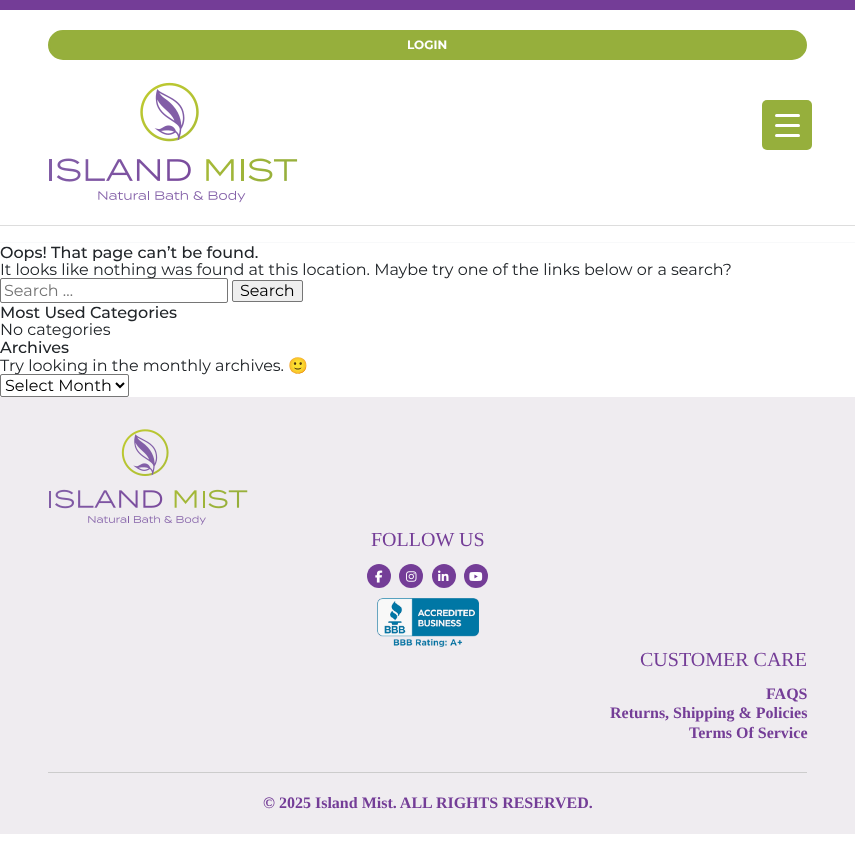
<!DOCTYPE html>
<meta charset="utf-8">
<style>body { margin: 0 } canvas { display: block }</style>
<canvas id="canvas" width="855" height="865"></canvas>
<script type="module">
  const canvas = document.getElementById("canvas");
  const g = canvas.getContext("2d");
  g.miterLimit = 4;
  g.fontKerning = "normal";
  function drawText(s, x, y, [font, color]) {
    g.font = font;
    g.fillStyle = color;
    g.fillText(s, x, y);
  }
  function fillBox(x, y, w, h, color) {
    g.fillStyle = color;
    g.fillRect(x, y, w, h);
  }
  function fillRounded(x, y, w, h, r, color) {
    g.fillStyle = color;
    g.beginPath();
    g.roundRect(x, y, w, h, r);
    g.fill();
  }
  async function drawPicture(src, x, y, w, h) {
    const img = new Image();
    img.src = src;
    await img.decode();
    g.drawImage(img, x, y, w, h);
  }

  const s1 = ["bold 12px Montserrat", "#FFFFFF"];
  const s2 = ["500 16px Montserrat", "#212529"];
  const s3 = ["16px Montserrat", "#212529"];
  const s4 = ["16px Montserrat", "#757575"];
  const s5 = ["16px Montserrat", "#000000"];
  const s6 = ["16px Noto Color Emoji", "#212529"];
  const s7 = ["20px Liberation Serif", "#743D97"];
  const s8 = ["bold 16px Liberation Serif", "#743D97"];

  fillBox(0, 0, 855, 865, "#FFFFFF");
  fillBox(0, 0, 855, 10, "#743D97");
  fillBox(0, 225, 855, 1, "#DDDDDD");
  g.fillStyle = "#96AF3C";
  g.beginPath();
  g.roundRect(49, 31, 757, 28, 14);
  g.fill();
  g.strokeStyle = "#96AF3C";
  g.lineWidth = 2;
  g.stroke();
  drawText("LOGIN", 407, 49, s1);
  await drawPicture("pic1.png", 49, 82, 249, 121);
  fillBox(0, 242, 855, 1, "#F8F9FA");
  drawText("Oops! That page can’t be found.", 0, 258, s2);
  drawText("It looks like nothing was found at this location. Maybe try one of the links below or a search?", 0, 275, s3);
  g.fillStyle = "#FFFFFF";
  g.beginPath();
  g.roundRect(0.5, 278.5, 227, 24, 1.5);
  g.fill();
  g.strokeStyle = "#767676";
  g.lineWidth = 1;
  g.stroke();
  drawText("Search …", 4, 296, s4);
  g.fillStyle = "#EFEFEF";
  g.beginPath();
  g.roundRect(232.5, 280.5, 70, 21, 1.5);
  g.fill();
  g.stroke();
  drawText("Search", 240, 296, s5);
  drawText("Most Used Categories", 0, 318, s2);
  drawText("No categories", 0, 335, s3);
  drawText("Archives", 0, 353, s2);
  drawText("Try looking in the monthly archives.", 0, 371, s3);
  drawText("🙂", 288, 371, s6);
  g.fillStyle = "#FFFFFF";
  g.beginPath();
  g.roundRect(0.5, 374.5, 128, 22, 1.5);
  g.fill();
  g.stroke();
  g.beginPath();
  g.moveTo(116, 383);
  g.lineTo(120, 387);
  g.lineTo(124, 383);
  g.strokeStyle = "#000000";
  g.lineWidth = 2;
  g.stroke();
  drawText("Select Month", 5, 391, s5);
  fillBox(0, 397, 855, 437, "#EFECF0");
  fillBox(48, 772, 759, 1, "#CCCCCC");
  await drawPicture("pic2.png", 49, 429, 199, 96);
  drawText("FOLLOW US", 371, 546, s7);
  g.beginPath();
  g.arc(379, 576, 12, 0, Math.PI * 2);
  g.fill();
  await drawPicture("pic3.png", 375, 570, 8, 13);
  g.beginPath();
  g.arc(411, 576, 12, 0, Math.PI * 2);
  g.fill();
  await drawPicture("pic4.png", 406, 571, 11, 11);
  g.beginPath();
  g.arc(444, 576, 12, 0, Math.PI * 2);
  g.fill();
  await drawPicture("pic5.png", 438, 570, 11, 11);
  g.beginPath();
  g.arc(476, 576, 12, 0, Math.PI * 2);
  g.fill();
  await drawPicture("pic6.png", 469, 572, 14, 9);
  await drawPicture("pic7.png", 377, 598, 102, 49);
  drawText("CUSTOMER CARE", 640, 666, s7);
  drawText("FAQS", 766, 699, s8);
  drawText("Returns, Shipping & Policies", 610, 718, s8);
  drawText("Terms Of Service", 689, 738, s8);
  drawText("© 2025 Island Mist. ALL RIGHTS RESERVED.", 263, 808, s8);
  fillRounded(762, 100, 50, 50, 5, "#96AF3C");
  fillRounded(775, 124, 25, 3, 1.5, "#FFFFFF");
  fillRounded(775, 114, 25, 3, 1.5, "#FFFFFF");
  fillRounded(775, 134, 25, 3, 1.5, "#FFFFFF");
</script>
